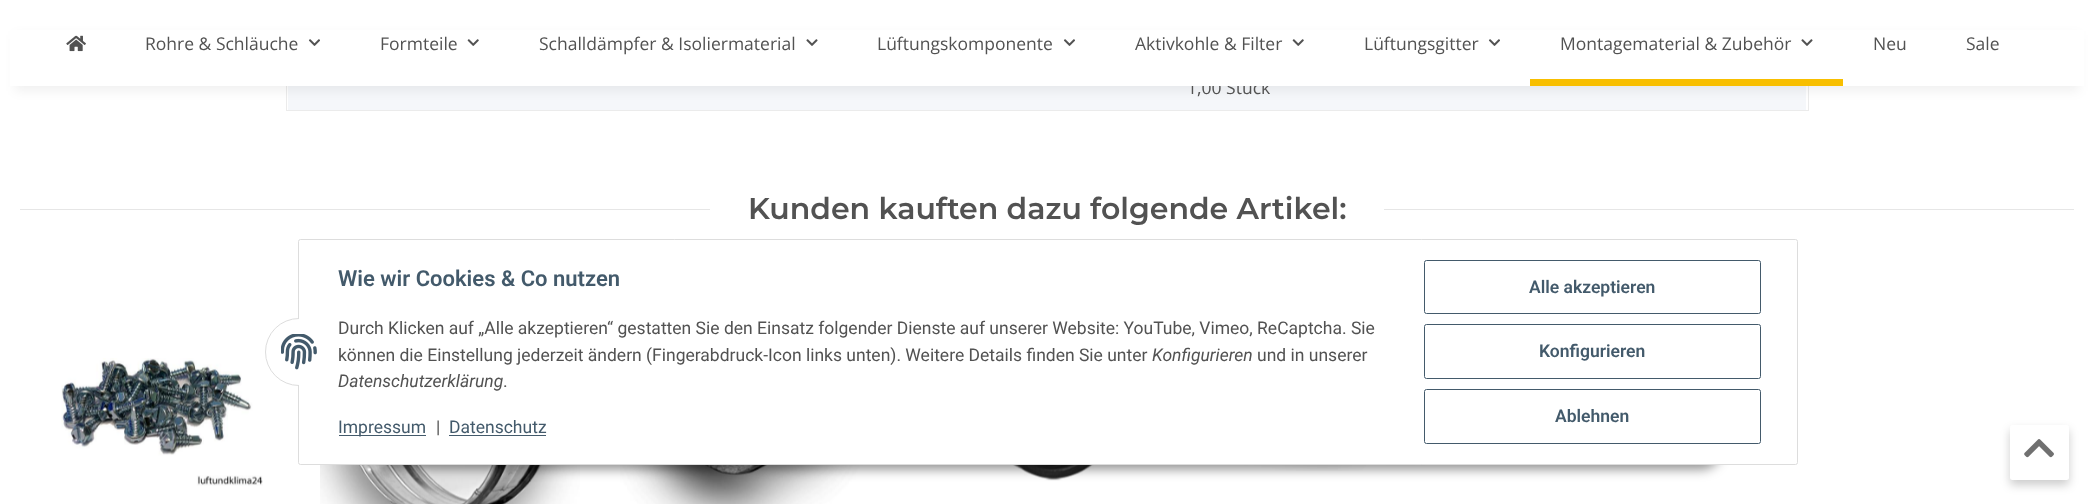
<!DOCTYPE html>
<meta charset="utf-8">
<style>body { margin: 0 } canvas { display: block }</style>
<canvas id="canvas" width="2093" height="504"></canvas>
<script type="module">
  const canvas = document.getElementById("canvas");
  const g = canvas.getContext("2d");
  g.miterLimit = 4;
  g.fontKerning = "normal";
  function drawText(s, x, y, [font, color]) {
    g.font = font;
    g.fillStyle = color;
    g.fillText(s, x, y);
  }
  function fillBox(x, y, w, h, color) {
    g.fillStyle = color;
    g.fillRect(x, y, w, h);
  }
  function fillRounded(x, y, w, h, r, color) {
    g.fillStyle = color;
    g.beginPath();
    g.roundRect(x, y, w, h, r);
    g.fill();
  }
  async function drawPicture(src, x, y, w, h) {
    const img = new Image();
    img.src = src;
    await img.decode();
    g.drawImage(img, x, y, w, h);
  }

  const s1 = ["17.5px Open Sans", "#525252"];
  const s2 = ["600 30px Montserrat", "#525252"];
  const s3 = ["600 22px Roboto", "#435A6B"];
  const s4 = ["17.5px Roboto", "#525252"];
  const s5 = ["italic 17.5px Roboto", "#525252"];
  const s6 = ["17.5px Roboto", "#435A6B"];
  const s7 = ["600 17.5px Roboto", "#435A6B"];

  fillBox(0, 0, 2093, 504, "#FFFFFF");
  fillBox(288, 86, 1518, 24, "#F5F7FA");
  fillBox(1808, 86, 1, 25, "#EBEBEB");
  fillBox(286, 110, 1523, 1, "#EBEBEB");
  fillBox(286, 86, 1, 25, "#EBEBEB");
  g.fillStyle = "rgba(0, 0, 0, 0.06)";
  g.filter = "blur(5.5px)";
  g.beginPath();
  g.rect(15, 35, 2064, 56);
  g.fill();
  g.filter = "none";
  drawText("1,00 Stück", 1187, 94, s1);
  fillBox(10, 30, 2074, 56, "#FFFFFF");
  await drawPicture("pic1.png", 66, 35, 20, 17);
  drawText("Rohre & Schläuche", 145, 50, s1);
  await drawPicture("pic2.png", 308, 39, 12, 7);
  drawText("Formteile", 380, 50, s1);
  await drawPicture("pic3.png", 467, 39, 12, 7);
  drawText("Schalldämpfer & Isoliermaterial", 539, 50, s1);
  await drawPicture("pic4.png", 806, 39, 12, 7);
  drawText("Lüftungskomponente", 877, 50, s1);
  await drawPicture("pic2.png", 1063, 39, 12, 7);
  drawText("Aktivkohle & Filter", 1135, 50, s1);
  await drawPicture("pic3.png", 1292, 39, 12, 7);
  drawText("Lüftungsgitter", 1364, 50, s1);
  await drawPicture("pic2.png", 1488, 39, 12, 7);
  drawText("Montagematerial & Zubehör", 1560, 50, s1);
  await drawPicture("pic4.png", 1801, 39, 12, 7);
  fillBox(1530, 79, 313, 7, "#F8BF00");
  drawText("Neu", 1873, 50, s1);
  drawText("Sale", 1966, 50, s1);
  fillBox(20, 209, 690, 1, "#E6E6E6");
  drawText("Kunden kauften dazu folgende Artikel:", 748, 219, s2);
  fillBox(1384, 209, 690, 1, "#E6E6E6");
  await drawPicture("pic5.png", 61, 358, 202, 128);
  await drawPicture("pic6.png", 320, 465, 260, 39);
  await drawPicture("pic7.png", 620, 465, 245, 39);
  await drawPicture("pic8.png", 967, 465, 176, 16);
  await drawPicture("pic9.png", 1220, 465, 236, 6);
  g.fillStyle = "rgba(0, 0, 0, 0.45)";
  g.filter = "blur(6px)";
  g.beginPath();
  g.roundRect(373, 429, 1348, 40, 20);
  g.fill();
  g.filter = "none";
  g.fillStyle = "#FFFFFF";
  g.beginPath();
  g.roundRect(298.5, 239.5, 1499, 225, 2);
  g.fill();
  g.strokeStyle = "#DDDDDD";
  g.stroke();
  g.beginPath();
  g.roundRect(265.5, 318.5, 68, 67, 33.5);
  g.fill();
  g.stroke();
  fillBox(299, 318, 35, 68, "#FFFFFF");
  await drawPicture("pic10.png", 281, 334, 36, 36);
  drawText("Wie wir Cookies & Co nutzen", 338, 286, s3);
  drawText("Durch Klicken auf „Alle akzeptieren“ gestatten Sie den Einsatz folgender Dienste auf unserer Website: YouTube, Vimeo, ReCaptcha. Sie", 338, 334, s4);
  drawText("können die Einstellung jederzeit ändern (Fingerabdruck-Icon links unten). Weitere Details finden Sie unter", 338, 361, s4);
  drawText("Konfigurieren", 1152, 361, s5);
  drawText("und in unserer", 1257, 361, s4);
  drawText("Datenschutzerklärung", 338, 387, s5);
  drawText(".", 503, 387, s4);
  fillBox(339, 435, 87, 1, "#435A6B");
  drawText("Impressum", 338, 433, s6);
  drawText("|", 436, 433, s4);
  drawText("Datenschutz", 449, 433, s6);
  fillBox(449, 435, 97, 1, "#435A6B");
  g.beginPath();
  g.roundRect(1424.5, 260.5, 336, 53, 2);
  g.strokeStyle = "#435A6B";
  g.stroke();
  drawText("Alle akzeptieren", 1529, 293, s7);
  g.beginPath();
  g.roundRect(1424.5, 324.5, 336, 54, 2);
  g.stroke();
  drawText("Konfigurieren", 1539, 357, s7);
  g.beginPath();
  g.roundRect(1424.5, 389.5, 336, 54, 2);
  g.stroke();
  drawText("Ablehnen", 1555, 422, s7);
  g.fillStyle = "rgba(0, 0, 0, 0.2)";
  g.filter = "blur(5px)";
  g.beginPath();
  g.roundRect(2010, 430, 59, 55, 2.5);
  g.fill();
  g.filter = "none";
  fillRounded(2010, 425, 59, 55, 2.5, "#FFFFFF");
  await drawPicture("pic11.png", 2024, 439, 30, 19);
</script>
